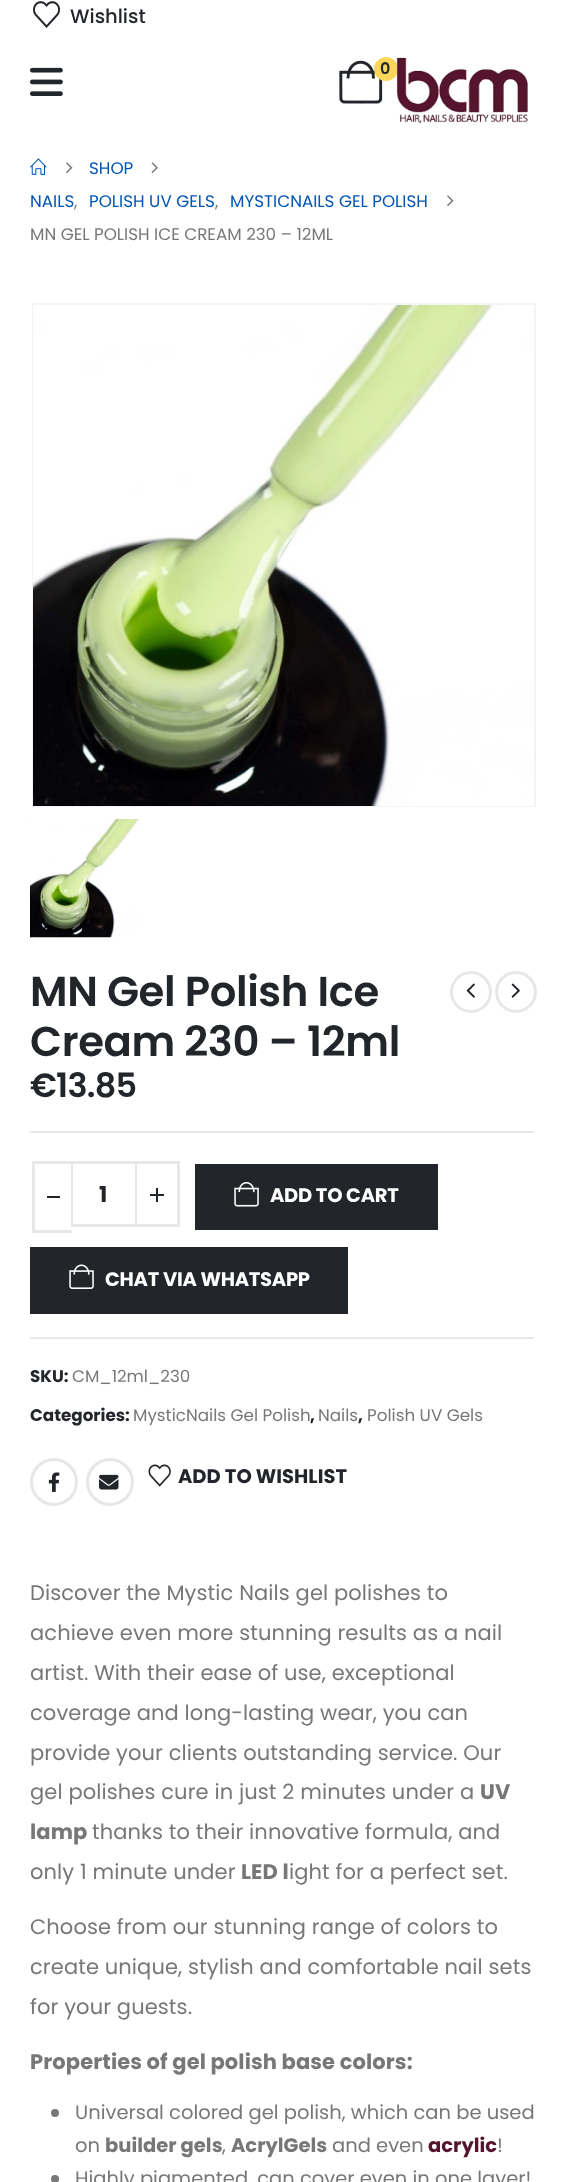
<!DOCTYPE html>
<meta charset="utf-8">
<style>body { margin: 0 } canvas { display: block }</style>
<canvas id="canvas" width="567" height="2182"></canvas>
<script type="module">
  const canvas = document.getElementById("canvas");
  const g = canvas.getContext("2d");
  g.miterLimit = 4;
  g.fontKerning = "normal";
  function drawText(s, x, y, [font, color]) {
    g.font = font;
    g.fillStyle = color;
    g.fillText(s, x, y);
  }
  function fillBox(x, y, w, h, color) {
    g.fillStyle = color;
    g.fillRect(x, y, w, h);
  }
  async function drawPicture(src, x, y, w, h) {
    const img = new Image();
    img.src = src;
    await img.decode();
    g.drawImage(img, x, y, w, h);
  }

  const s1 = ["500 19.5px Poppins", "#222529"];
  const s2 = ["600 16px Poppins", "#222529"];
  const s3 = ["16.75px Poppins", "#0155B5"];
  const s4 = ["16.75px Poppins", "#777777"];
  const s5 = ["600 41.75px Poppins", "#222529"];
  const s6 = ["600 33.5px Poppins", "#222529"];
  const s7 = ["bold 22px Poppins", "#222529"];
  const s8 = ["bold 19.5px Poppins", "#FFFFFF"];
  const s9 = ["bold 16.75px Poppins", "#222529"];
  const s10 = ["bold 19.5px Poppins", "#222529"];
  const s11 = ["21px Poppins", "#777777"];
  const s12 = ["bold 21px Poppins", "#777777"];
  const s13 = ["19.5px Poppins", "#777777"];
  const s14 = ["bold 19.5px Poppins", "#777777"];
  const s15 = ["bold 19.5px Poppins", "#56152E"];

  fillBox(0, 0, 567, 2182, "#FFFFFF");
  await drawPicture("pic1.png", 33, 1, 27, 27);
  drawText("Wishlist", 70, 23, s1);
  await drawPicture("pic2.png", 30, 67, 33, 29);
  await drawPicture("pic3.png", 339, 60, 44, 44);
  g.fillStyle = "#FAD75A";
  g.beginPath();
  g.arc(386, 69, 12, 0, Math.PI * 2);
  g.fill();
  drawText("0", 380, 74, s2);
  await drawPicture("pic4.png", 396, 57, 132, 67);
  await drawPicture("pic5.png", 30, 158, 17, 17);
  await drawPicture("pic6.png", 66, 162, 7, 11);
  drawText("SHOP", 89, 174, s3);
  await drawPicture("pic7.png", 151, 162, 7, 11);
  drawText("NAILS", 30, 207, s3);
  drawText("POLISH UV GELS", 89, 207, s3);
  drawText("MYSTICNAILS GEL POLISH", 230, 207, s3);
  await drawPicture("pic6.png", 447, 195, 7, 11);
  drawText(",", 74, 207, s4);
  drawText(",", 215, 207, s4);
  drawText("MN GEL POLISH ICE CREAM 230 – 12ML", 30, 240, s4);
  g.strokeStyle = "#F4F4F4";
  g.lineWidth = 2;
  g.strokeRect(33, 304, 502, 502);
  await drawPicture("pic8.png", 33, 305, 501, 501);
  await drawPicture("pic9.png", 30, 819, 111, 119);
  g.letterSpacing = "-0.4px";
  drawText("MN Gel Polish Ice", 30, 1006, s5);
  drawText("Cream 230 – 12ml", 30, 1056, s5);
  g.beginPath();
  g.arc(471, 992, 19.5, 0, Math.PI * 2);
  g.strokeStyle = "#E7E7E7";
  g.lineWidth = 3;
  g.stroke();
  await drawPicture("pic10.png", 466, 983, 9, 15);
  g.beginPath();
  g.arc(516, 992, 19.5, 0, Math.PI * 2);
  g.stroke();
  await drawPicture("pic11.png", 511, 983, 9, 15);
  g.letterSpacing = "-0.75px";
  drawText("€13.85", 30, 1097, s6);
  fillBox(30, 1131, 504, 2, "#E7E7E7");
  fillBox(30, 1337, 504, 2, "#E7E7E7");
  fillBox(71, 1161, 66, 3, "#E7E7E7");
  fillBox(135, 1161, 2, 66, "#E7E7E7");
  fillBox(71, 1224, 66, 3, "#E7E7E7");
  fillBox(71, 1161, 2, 66, "#E7E7E7");
  fillBox(32, 1161, 40, 3, "#E7E7E7");
  fillBox(32, 1230, 40, 3, "#E7E7E7");
  fillBox(32, 1161, 3, 72, "#E7E7E7");
  fillBox(47, 1196, 13, 2, "#222529");
  g.letterSpacing = "0px";
  drawText("1", 99, 1202, s7);
  fillBox(135, 1161, 45, 3, "#E7E7E7");
  fillBox(177, 1161, 3, 66, "#E7E7E7");
  fillBox(135, 1224, 45, 3, "#E7E7E7");
  fillBox(150, 1194, 14, 2, "#222529");
  fillBox(156, 1188, 2, 14, "#222529");
  fillBox(195, 1164, 243, 66, "#222529");
  await drawPicture("pic12.png", 234, 1182, 25, 25);
  g.letterSpacing = "-0.25px";
  drawText("ADD TO CART", 270, 1202, s8);
  fillBox(30, 1247, 318, 67, "#222529");
  await drawPicture("pic13.png", 69, 1264, 25, 25);
  drawText("CHAT VIA WHATSAPP", 105, 1286, s8);
  g.letterSpacing = "0px";
  drawText("SKU:", 30, 1382, s9);
  drawText("CM_12ml_230", 72, 1382, s4);
  drawText("Categories:", 30, 1421, s9);
  drawText("MysticNails Gel Polish", 133, 1421, s4);
  drawText(",", 310, 1421, s9);
  drawText("Nails", 318, 1421, s4);
  drawText(",", 358, 1421, s9);
  drawText("Polish UV Gels", 367, 1421, s4);
  g.beginPath();
  g.arc(54, 1482, 22.5, 0, Math.PI * 2);
  g.stroke();
  await drawPicture("pic14.png", 48, 1472, 12, 20);
  g.beginPath();
  g.arc(110, 1482, 22.5, 0, Math.PI * 2);
  g.stroke();
  await drawPicture("pic15.png", 99, 1474, 20, 16);
  await drawPicture("pic16.png", 148, 1464, 23, 23);
  drawText("ADD TO WISHLIST", 178, 1483, s10);
  g.letterSpacing = "0.1px";
  drawText("Discover the Mystic Nails gel polishes to", 30, 1600, s11);
  drawText("achieve even more stunning results as a nail", 30, 1640, s11);
  drawText("artist. With their ease of use, exceptional", 30, 1680, s11);
  drawText("coverage and long-lasting wear, you can", 30, 1720, s11);
  drawText("provide your clients outstanding service. Our", 30, 1760, s11);
  drawText("gel polishes cure in just 2 minutes under a", 30, 1799, s11);
  drawText("UV", 480, 1799, s12);
  drawText("lamp", 30, 1839, s12);
  drawText("thanks to their innovative formula, and", 92, 1839, s11);
  drawText("only 1 minute under", 30, 1879, s11);
  drawText("LED l", 241, 1879, s12);
  drawText("ight for a perfect set.", 289, 1879, s11);
  drawText("Choose from our stunning range of colors to", 30, 1934, s11);
  drawText("create unique, stylish and comfortable nail sets", 30, 1974, s11);
  drawText("for your guests.", 30, 2014, s11);
  drawText("Properties of gel polish base colors:", 30, 2069, s12);
  g.beginPath();
  g.arc(55, 2113, 4, 0, Math.PI * 2);
  g.fill();
  g.letterSpacing = "0px";
  drawText("Universal colored gel polish, which can be used", 75, 2119, s13);
  drawText("on", 75, 2152, s13);
  drawText("builder gels", 105, 2152, s14);
  drawText(",", 222, 2152, s13);
  drawText("AcrylGels", 231, 2152, s14);
  drawText("and even", 332, 2152, s13);
  drawText("acrylic", 428, 2152, s15);
  drawText("!", 497, 2152, s13);
  g.beginPath();
  g.arc(55, 2179, 4, 0, Math.PI * 2);
  g.fill();
  drawText("Highly pigmented, can cover even in one layer!", 75, 2185, s13);
</script>
